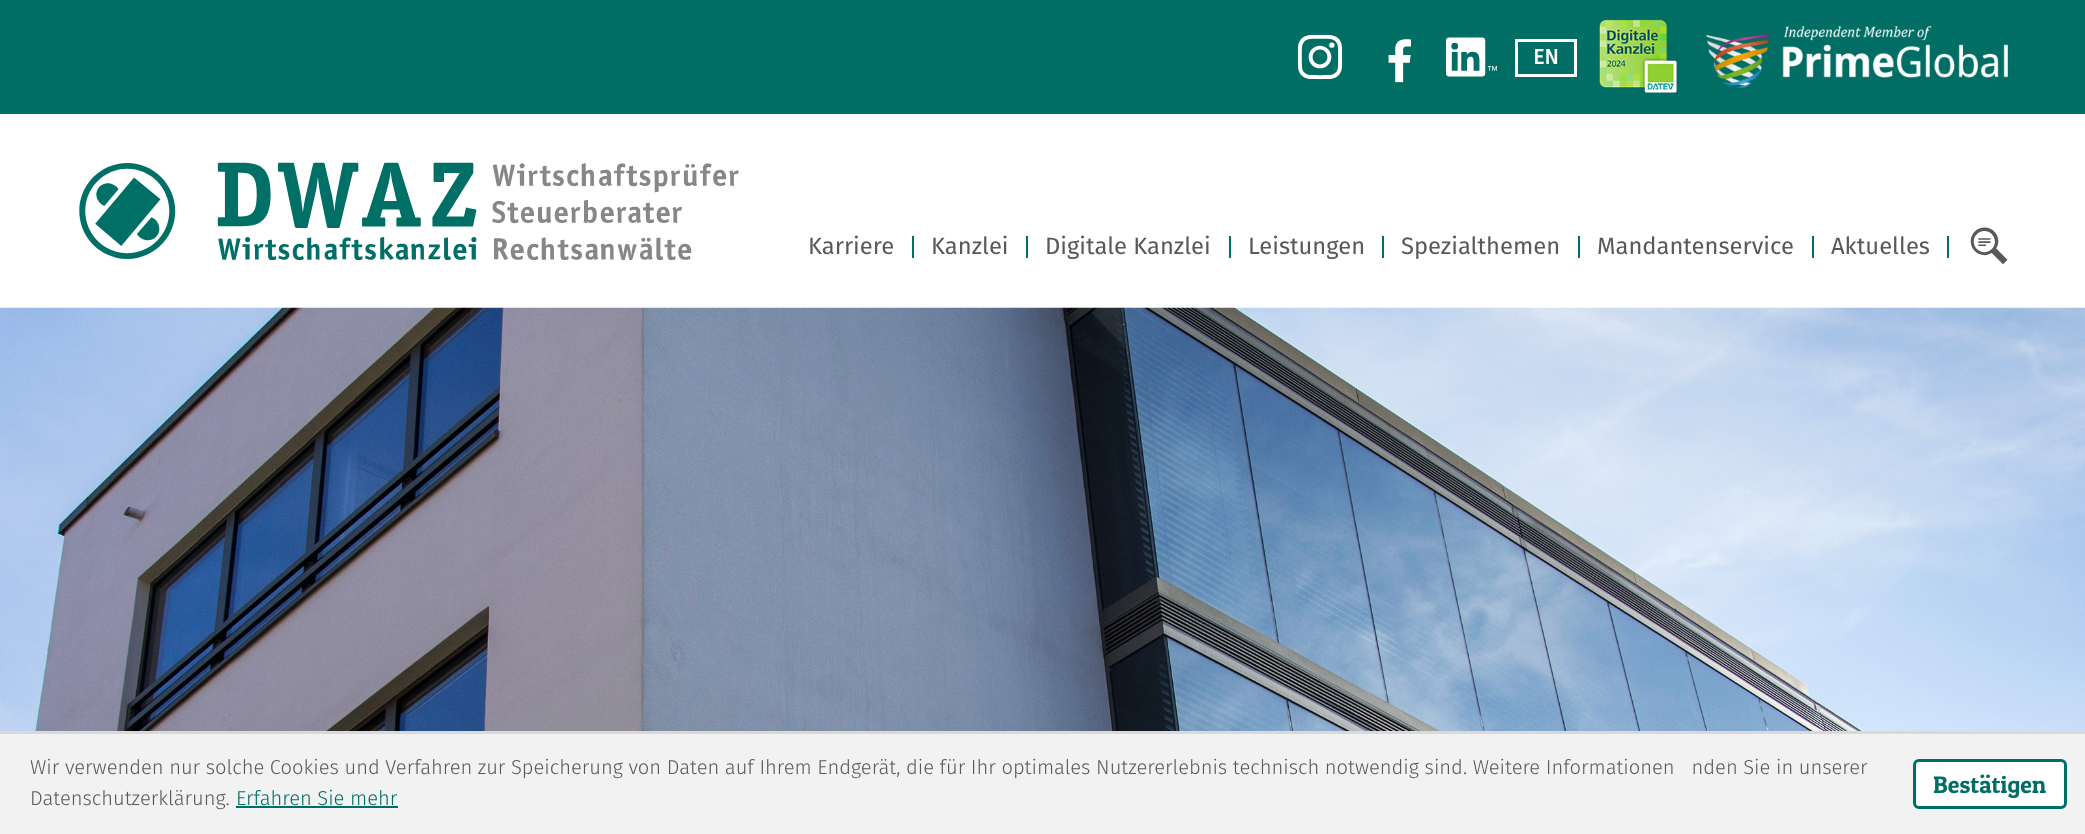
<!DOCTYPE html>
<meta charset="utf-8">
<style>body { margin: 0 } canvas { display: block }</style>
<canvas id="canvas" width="2085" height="834"></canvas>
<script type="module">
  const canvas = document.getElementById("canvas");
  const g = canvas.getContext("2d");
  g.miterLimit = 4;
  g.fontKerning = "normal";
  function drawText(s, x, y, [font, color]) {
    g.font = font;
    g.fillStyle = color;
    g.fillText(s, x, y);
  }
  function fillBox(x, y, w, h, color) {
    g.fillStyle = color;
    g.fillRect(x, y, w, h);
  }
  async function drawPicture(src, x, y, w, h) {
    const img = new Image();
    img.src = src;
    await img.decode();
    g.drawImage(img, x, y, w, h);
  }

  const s1 = ["bold 21px Fira Sans", "#FFFFFF"];
  const s2 = ["23.75px Fira Sans", "#595959"];
  const s3 = ["300 20.15px Fira Sans", "#595959"];
  const s4 = ["300 20.15px Fira Sans", "#006E64"];
  const s5 = ["24px Patua One", "#006E64"];

  fillBox(0, 0, 2085, 834, "#FFFFFF");
  fillBox(0, 0, 2085, 114, "#006E64");
  await drawPicture("pic1.png", 1297, 34, 46, 46);
  await drawPicture("pic2.png", 1388, 39, 23, 44);
  await drawPicture("pic3.png", 1446, 37, 51, 40);
  g.strokeStyle = "#FFFFFF";
  g.lineWidth = 3;
  g.strokeRect(1516.5, 40.5, 59, 35);
  drawText("EN", 1533, 64, s1);
  await drawPicture("pic4.png", 1599, 19, 78, 74);
  await drawPicture("pic5.png", 1706, 26, 302, 62);
  await drawPicture("pic6.png", 79, 162, 660, 98);
  fillBox(912, 236, 2, 22, "#006E64");
  drawText("Karriere", 808, 254, s2);
  fillBox(1026, 236, 2, 22, "#006E64");
  drawText("Kanzlei", 931, 254, s2);
  fillBox(1229, 236, 2, 22, "#006E64");
  drawText("Digitale Kanzlei", 1045, 254, s2);
  fillBox(1382, 236, 2, 22, "#006E64");
  drawText("Leistungen", 1248, 254, s2);
  fillBox(1578, 236, 2, 22, "#006E64");
  drawText("Spezialthemen", 1401, 254, s2);
  fillBox(1812, 236, 2, 22, "#006E64");
  drawText("Mandantenservice", 1597, 254, s2);
  fillBox(1947, 236, 2, 22, "#006E64");
  drawText("Aktuelles", 1831, 254, s2);
  await drawPicture("pic7.png", 1970, 227, 38, 38);
  await drawPicture("pic8.png", 0, 307, 2085, 424);
  fillBox(0, 734, 2085, 100, "#F2F2F2");
  fillBox(0, 731, 2085, 3, "#D9D9D9");
  drawText("Wir verwenden nur solche Cookies und Verfahren zur Speicherung von Daten auf Ihrem Endgerät, die für Ihr optimales Nutzererlebnis technisch notwendig sind. Weitere Informationen finden Sie in unserer", 30, 774, s3);
  drawText("Datenschutzerklärung.", 30, 805, s3);
  drawText("Erfahren Sie mehr", 236, 805, s4);
  fillBox(236, 806, 162, 2, "#006E64");
  g.fillStyle = "#FFFFFF";
  g.beginPath();
  g.roundRect(1914.5, 760.5, 151, 47, 4.5);
  g.fill();
  g.strokeStyle = "#006E64";
  g.stroke();
  drawText("Bestätigen", 1933, 793, s5);
</script>
